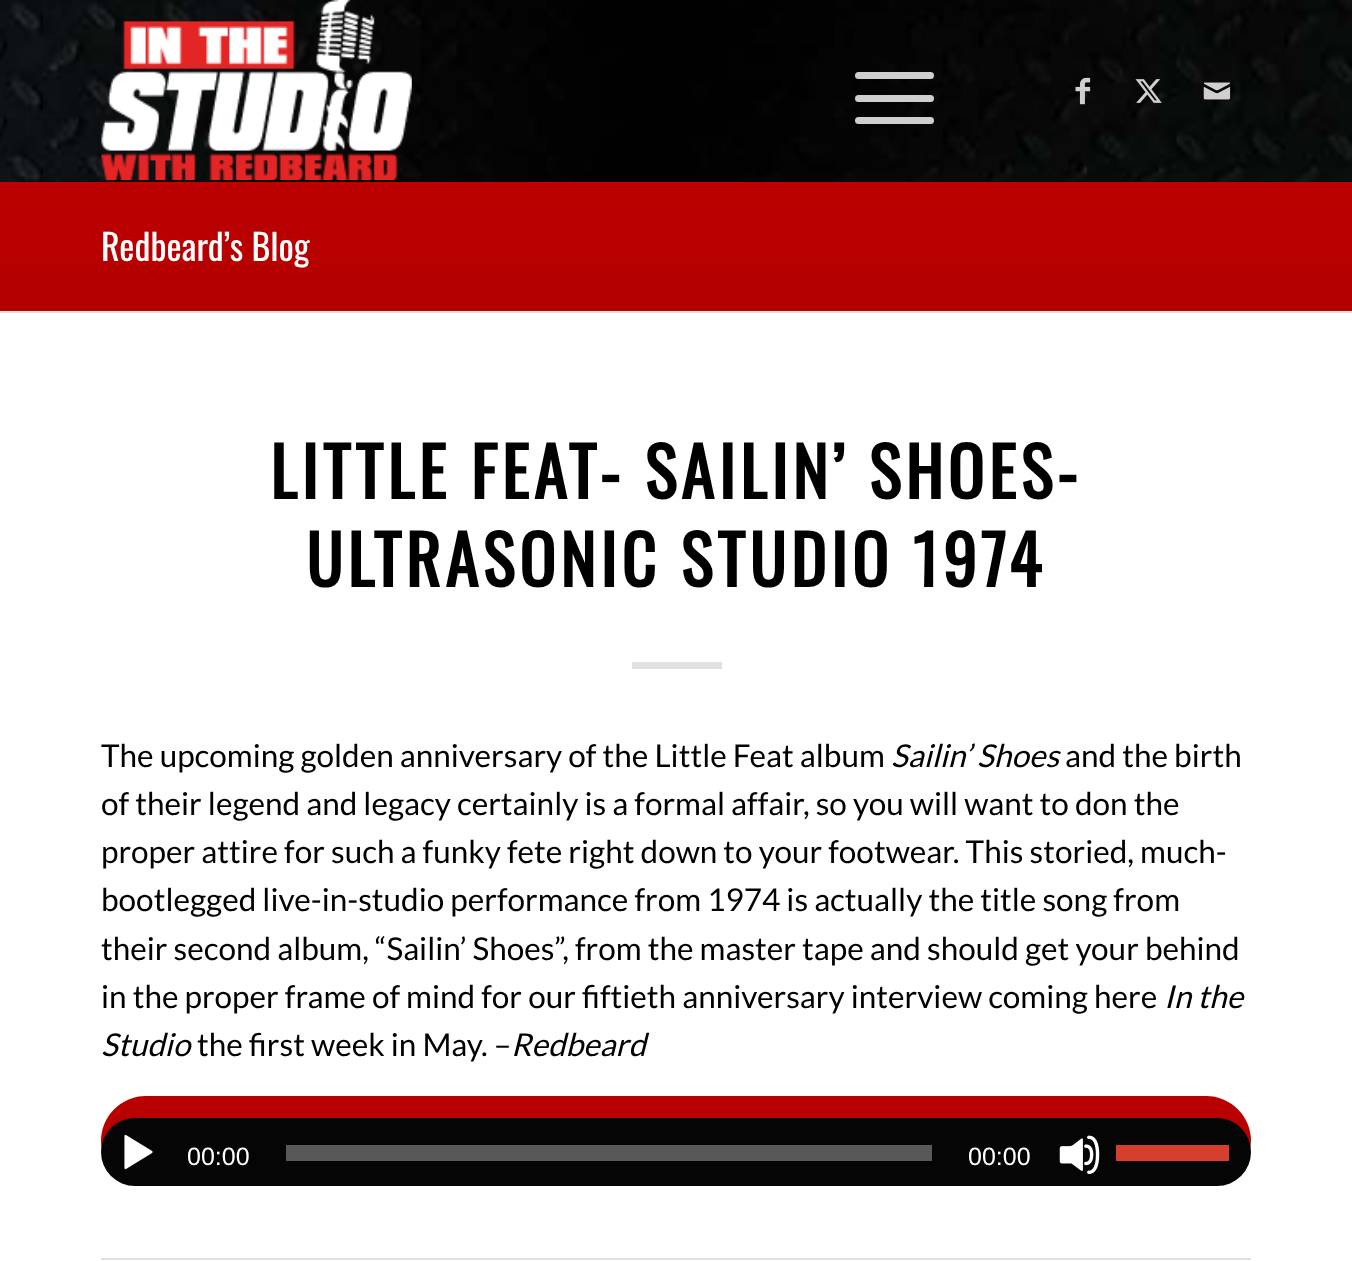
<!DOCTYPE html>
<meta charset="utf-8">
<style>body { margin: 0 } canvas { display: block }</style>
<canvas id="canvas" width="1352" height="1261"></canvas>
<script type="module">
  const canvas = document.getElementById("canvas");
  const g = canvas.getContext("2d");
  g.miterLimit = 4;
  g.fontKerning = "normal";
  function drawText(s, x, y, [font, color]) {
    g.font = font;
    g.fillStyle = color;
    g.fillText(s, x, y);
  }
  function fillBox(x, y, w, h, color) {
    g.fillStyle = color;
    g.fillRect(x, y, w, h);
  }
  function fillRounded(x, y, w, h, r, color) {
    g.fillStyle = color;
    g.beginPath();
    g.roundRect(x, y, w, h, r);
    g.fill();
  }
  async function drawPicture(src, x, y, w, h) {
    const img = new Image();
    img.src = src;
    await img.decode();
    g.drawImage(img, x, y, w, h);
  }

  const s1 = ["36px Oswald", "#FFFFFF"];
  const s2 = ["bold 67.5px Oswald", "#000000"];
  const s3 = ["31.5px Lato", "#000000"];
  const s4 = ["italic 31.5px Lato", "#000000"];
  const s5 = ["25px Liberation Sans", "#FFFFFF"];

  fillBox(0, 0, 1352, 1261, "#C20000");
  await drawPicture("pic1.png", 0, 0, 1352, 182);
  await drawPicture("pic2.png", 101, 0, 311, 180);
  fillRounded(855, 95, 79, 7, 3.5, "#CFCFCF");
  fillRounded(855, 72, 79, 7, 3.5, "#CFCFCF");
  fillRounded(855, 117, 79, 7, 3.5, "#CFCFCF");
  await drawPicture("pic3.png", 1075, 77, 16, 28);
  await drawPicture("pic4.png", 1135, 79, 27, 24);
  await drawPicture("pic5.png", 1203, 82, 28, 18);
  await drawPicture("pic6.png", 0, 183, 1352, 128);
  drawText("Redbeard’s Blog", 101, 261, s1);
  fillBox(0, 313, 1352, 948, "#FFFFFF");
  fillBox(0, 311, 1352, 2, "#E1E1E1");
  g.letterSpacing = "4.5px";
  drawText("LITTLE FEAT- SAILIN’ SHOES-", 270, 499, s2);
  drawText("ULTRASONIC STUDIO 1974", 306, 587, s2);
  fillBox(632, 662, 90, 7, "#E1E1E1");
  g.letterSpacing = "0px";
  drawText("The upcoming golden anniversary of the Little Feat album", 101, 767, s3);
  drawText("Sailin’ Shoes", 891, 767, s4);
  drawText("and the birth", 1065, 767, s3);
  drawText("of their legend and legacy certainly is a formal affair, so you will want to don the", 101, 815, s3);
  drawText("proper attire for such a funky fete right down to your footwear. This storied, much-", 101, 863, s3);
  drawText("bootlegged live-in-studio performance from 1974 is actually the title song from", 101, 911, s3);
  drawText("their second album, “Sailin’ Shoes”, from the master tape and should get your behind", 101, 960, s3);
  drawText("in the proper frame of mind for our fiftieth anniversary interview coming here", 101, 1008, s3);
  drawText("In the", 1164, 1008, s4);
  drawText("Studio", 101, 1056, s4);
  drawText("the first week in May. –", 197, 1056, s3);
  drawText("Redbeard", 511, 1056, s4);
  fillRounded(101, 1096, 1150, 90, 45, "#B80000");
  fillRounded(101, 1118, 1150, 68, 34, "#050505");
  await drawPicture("pic7.png", 124, 1134, 29, 36);
  drawText("00:00", 187, 1165, s5);
  fillBox(286, 1145, 646, 16, "#585858");
  drawText("00:00", 968, 1165, s5);
  await drawPicture("pic8.png", 1059, 1135, 41, 39);
  fillBox(1116, 1145, 113, 16, "#D63E2D");
  fillBox(101, 1258, 1150, 2, "#E1E1E1");
</script>
